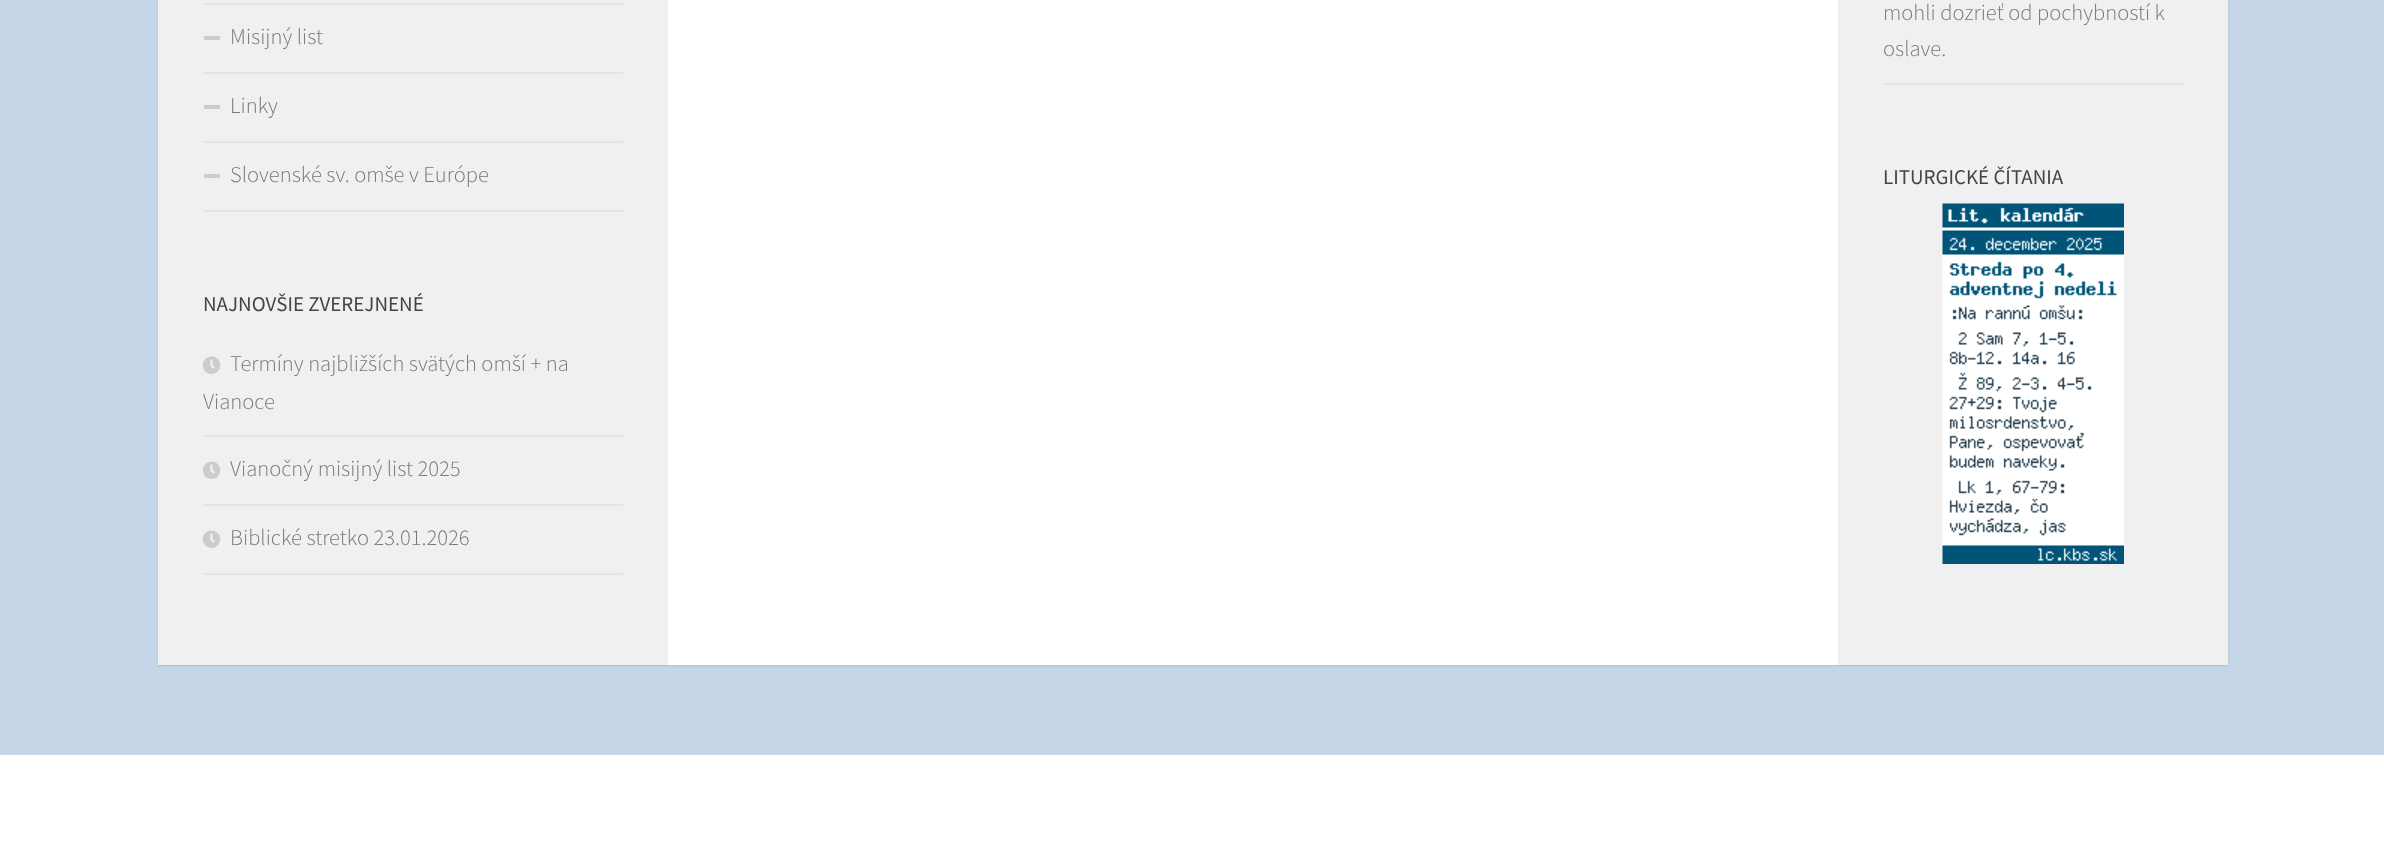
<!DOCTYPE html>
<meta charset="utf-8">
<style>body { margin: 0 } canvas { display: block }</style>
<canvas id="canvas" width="2384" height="848"></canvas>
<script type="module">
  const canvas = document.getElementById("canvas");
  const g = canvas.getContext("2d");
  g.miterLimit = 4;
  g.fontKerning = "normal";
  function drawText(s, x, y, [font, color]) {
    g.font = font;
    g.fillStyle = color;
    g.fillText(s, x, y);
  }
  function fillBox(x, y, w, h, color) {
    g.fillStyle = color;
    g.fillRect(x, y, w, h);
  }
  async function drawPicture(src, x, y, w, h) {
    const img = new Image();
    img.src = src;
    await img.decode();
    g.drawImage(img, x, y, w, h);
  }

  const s1 = ["300 22.5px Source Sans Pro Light", "#777777"];
  const s2 = ["21px Source Sans Pro", "#444444"];

  fillBox(0, 0, 2384, 848, "#C5D6E8");
  g.fillStyle = "rgba(0, 0, 0, 0.1)";
  g.filter = "blur(1px)";
  g.beginPath();
  g.rect(158, -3, 2070, 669);
  g.fill();
  g.filter = "none";
  fillBox(668, 0, 1170, 665, "#FFFFFF");
  fillBox(158, 0, 510, 665, "#F0F0F0");
  fillBox(1838, 0, 390, 665, "#F0F0F0");
  fillBox(203, 3, 420, 2, "#E4E4E4");
  fillBox(203, 72, 420, 2, "#E4E4E4");
  fillBox(204, 36, 16, 4, "#CCCCCC");
  drawText("Misijný list", 230, 44, s1);
  fillBox(203, 141, 420, 2, "#E4E4E4");
  fillBox(204, 105, 16, 4, "#CCCCCC");
  drawText("Linky", 230, 113, s1);
  fillBox(203, 210, 420, 2, "#E4E4E4");
  fillBox(204, 174, 16, 4, "#CCCCCC");
  drawText("Slovenské sv. omše v Európe", 230, 182, s1);
  drawText("NAJNOVŠIE ZVEREJNENÉ", 203, 311, s2);
  fillBox(203, 435, 420, 2, "#E4E4E4");
  await drawPicture("pic1.png", 202, 356, 19, 18);
  drawText("Termíny najbližších svätých omší + na", 230, 371, s1);
  drawText("Vianoce", 203, 409, s1);
  fillBox(203, 504, 420, 2, "#E4E4E4");
  await drawPicture("pic1.png", 202, 461, 19, 18);
  drawText("Vianočný misijný list 2025", 230, 476, s1);
  fillBox(203, 573, 420, 2, "#E4E4E4");
  await drawPicture("pic1.png", 202, 530, 19, 18);
  drawText("Biblické stretko 23.01.2026", 230, 545, s1);
  fillBox(1883, 83, 300, 2, "#E4E4E4");
  drawText("mohli dozrieť od pochybností k", 1883, 20, s1);
  drawText("oslave.", 1883, 56, s1);
  drawText("LITURGICKÉ ČÍTANIA", 1883, 184, s2);
  await drawPicture("pic2.png", 1942, 203, 182, 361);
  fillBox(0, 755, 2384, 93, "#FFFFFF");
</script>
